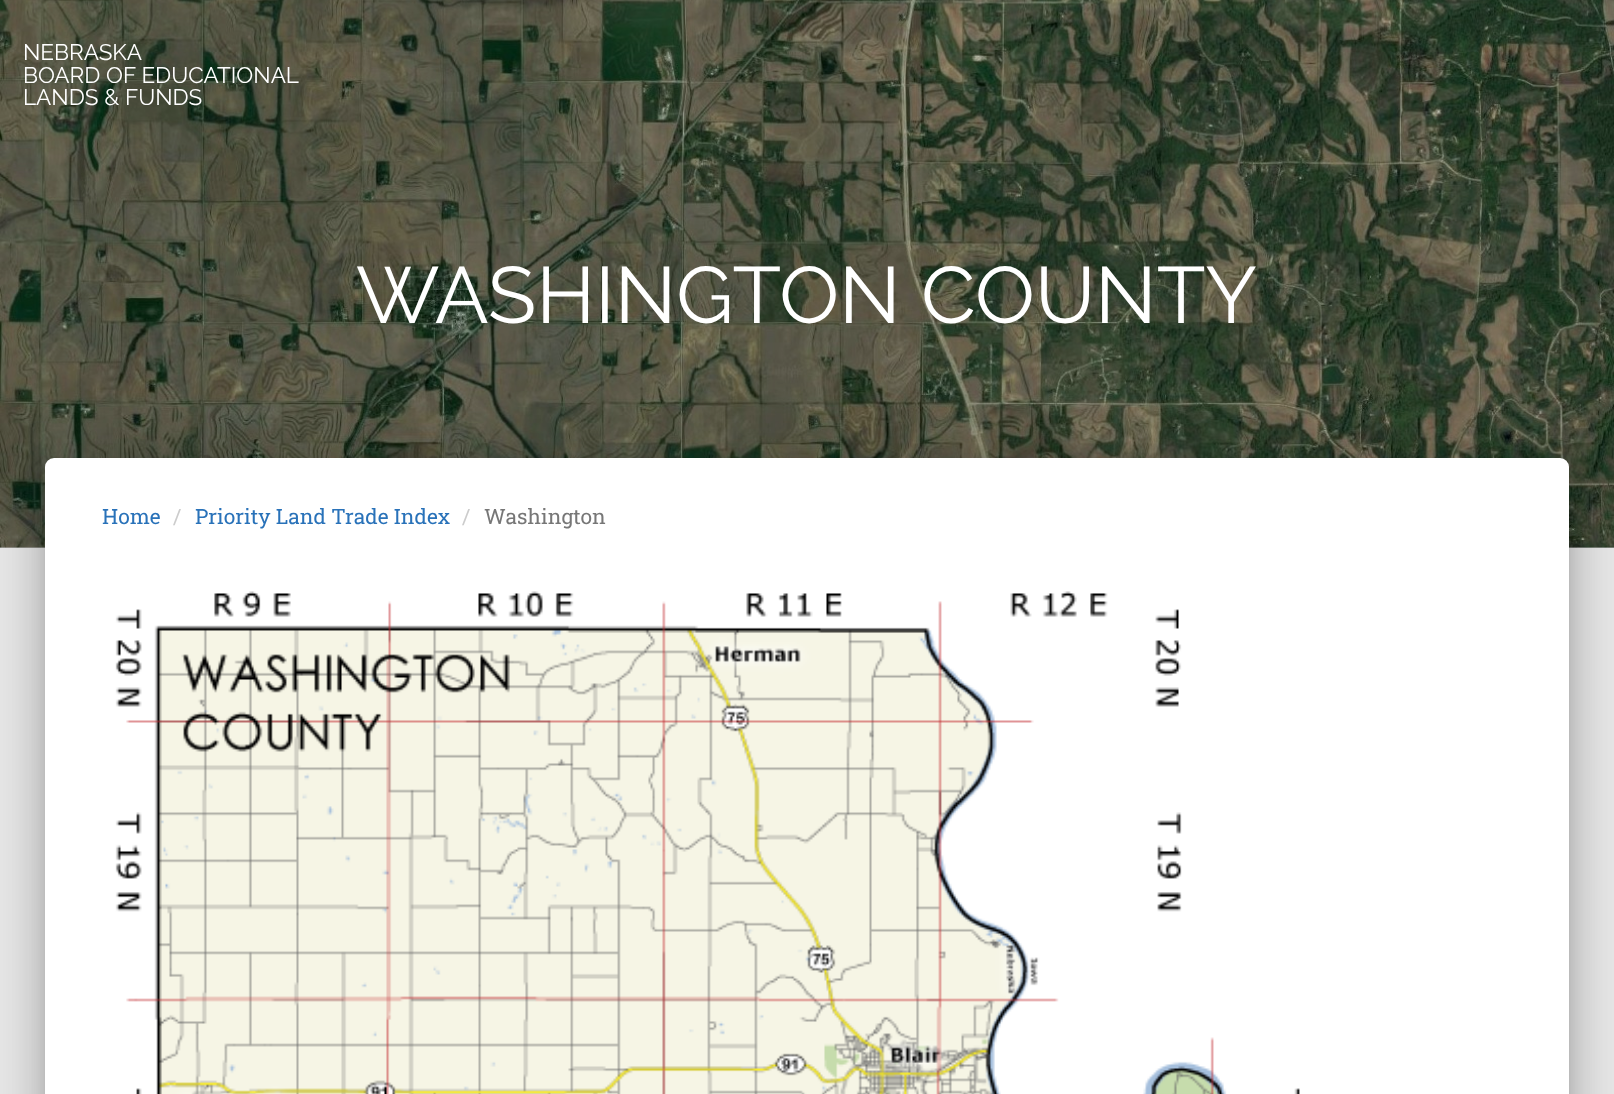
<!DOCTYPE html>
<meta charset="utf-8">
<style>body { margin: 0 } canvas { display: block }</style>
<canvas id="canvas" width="1614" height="1094"></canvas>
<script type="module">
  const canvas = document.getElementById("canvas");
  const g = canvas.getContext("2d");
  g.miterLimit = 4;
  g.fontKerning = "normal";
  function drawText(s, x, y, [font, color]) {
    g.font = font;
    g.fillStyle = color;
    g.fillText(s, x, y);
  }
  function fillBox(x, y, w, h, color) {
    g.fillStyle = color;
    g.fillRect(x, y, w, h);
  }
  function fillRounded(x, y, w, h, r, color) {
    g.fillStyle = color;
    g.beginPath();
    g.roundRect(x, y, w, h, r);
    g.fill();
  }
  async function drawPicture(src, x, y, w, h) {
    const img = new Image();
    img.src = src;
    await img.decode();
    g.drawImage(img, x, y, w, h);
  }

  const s1 = ["22.5px Raleway", "#FFFFFF"];
  const s2 = ["79.75px Raleway", "#FFFFFF"];
  const s3 = ["21px Roboto Slab", "#2972B9"];
  const s4 = ["21px Roboto Slab", "#CCCCCC"];
  const s5 = ["21px Roboto Slab", "#777777"];

  fillBox(0, 0, 1614, 1094, "#E5E5E5");
  fillBox(0, 547, 1614, 1, "#B7B7B7");
  await drawPicture("pic1.png", 0, 0, 1614, 548);
  drawText("NEBRASKA", 23, 60, s1);
  drawText("BOARD OF EDUCATIONAL", 23, 83, s1);
  drawText("LANDS & FUNDS", 23, 105, s1);
  drawText("WASHINGTON COUNTY", 356, 323, s2);
  g.fillStyle = "rgba(0, 0, 0, 0.2)";
  g.filter = "blur(7.5px)";
  g.beginPath();
  g.roundRect(53, 477, 1509, 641, 1.5);
  g.fill();
  g.filter = "none";
  g.fillStyle = "rgba(0, 0, 0, 0.12)";
  g.filter = "blur(22.5px)";
  g.beginPath();
  g.roundRect(38, 459, 1539, 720, 17);
  g.fill();
  g.filter = "none";
  g.fillStyle = "rgba(0, 0, 0, 0.14)";
  g.filter = "blur(18px)";
  g.beginPath();
  g.roundRect(42, 479, 1530, 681, 12);
  g.fill();
  g.filter = "none";
  fillRounded(45, 458, 1524, 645, 9, "#FFFFFF");
  drawText("Home", 102, 524, s3);
  drawText("/", 173, 524, s4);
  drawText("Priority Land Trade Index", 195, 524, s3);
  drawText("/", 462, 524, s4);
  drawText("Washington", 484, 524, s5);
  await drawPicture("pic2.png", 115, 591, 1185, 503);
</script>
